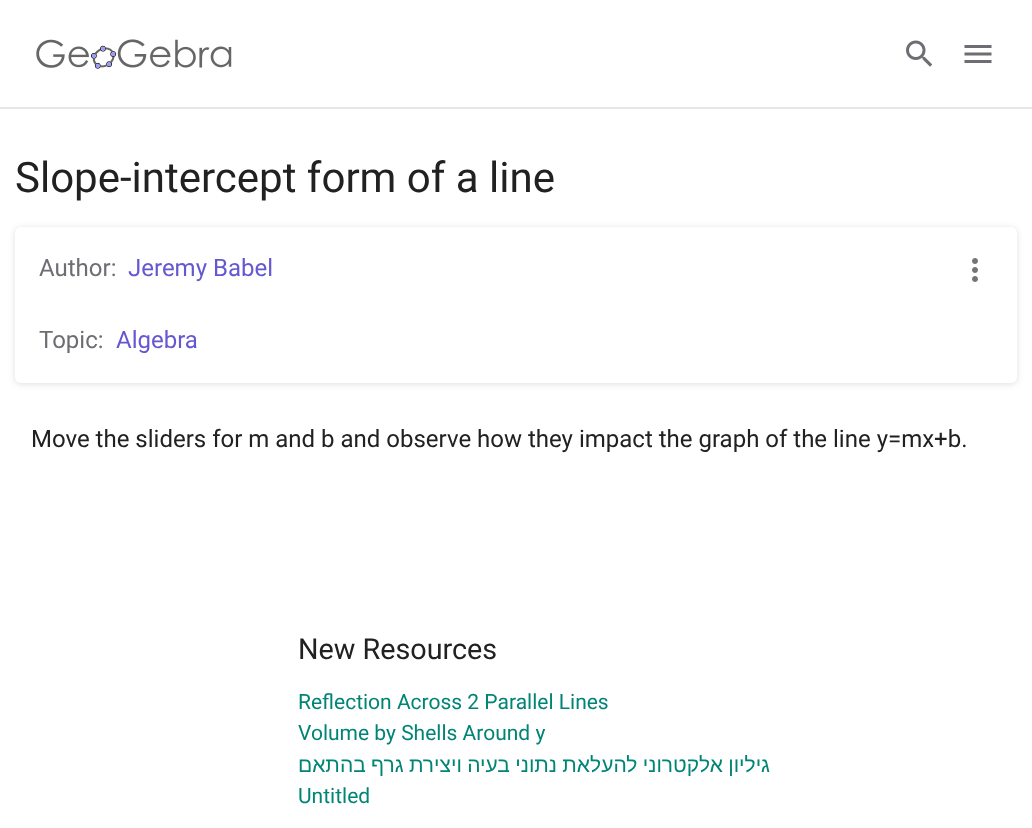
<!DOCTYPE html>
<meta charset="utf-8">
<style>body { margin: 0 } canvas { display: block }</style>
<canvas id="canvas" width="1032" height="828"></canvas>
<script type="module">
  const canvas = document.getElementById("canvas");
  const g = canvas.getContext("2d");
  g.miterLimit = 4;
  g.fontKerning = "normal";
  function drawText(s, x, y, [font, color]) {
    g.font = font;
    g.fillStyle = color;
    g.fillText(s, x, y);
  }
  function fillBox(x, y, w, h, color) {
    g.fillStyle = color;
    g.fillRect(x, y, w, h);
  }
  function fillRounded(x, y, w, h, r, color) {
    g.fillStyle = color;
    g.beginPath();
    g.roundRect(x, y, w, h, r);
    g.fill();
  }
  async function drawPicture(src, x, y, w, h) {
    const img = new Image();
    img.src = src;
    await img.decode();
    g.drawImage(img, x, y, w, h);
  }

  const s1 = ["42px Roboto", "#212121"];
  const s2 = ["24px Roboto", "#6E6D73"];
  const s3 = ["24px Roboto", "#6557D2"];
  const s4 = ["24px Roboto", "#212121"];
  const s5 = ["28.75px Roboto", "#212121"];
  const s6 = ["21px Roboto", "#008475"];
  const s7 = ["21px Liberation Sans", "#008475"];

  fillBox(0, 0, 1032, 828, "#FFFFFF");
  fillBox(0, 107, 1032, 2, "#E6E6EB");
  await drawPicture("pic1.png", 36, 39, 196, 30);
  await drawPicture("pic2.png", 906, 40, 27, 27);
  await drawPicture("pic3.png", 964, 45, 28, 18);
  drawText("Slope-intercept form of a line", 15, 192, s1);
  g.fillStyle = "rgba(28, 28, 31, 0.14)";
  g.filter = "blur(3px)";
  g.beginPath();
  g.roundRect(15, 228, 1002, 156, 6);
  g.fill();
  g.filter = "none";
  fillRounded(15, 227, 1002, 156, 6, "#FFFFFF");
  drawText("Author:", 39, 276, s2);
  drawText("Jeremy Babel", 128, 276, s3);
  drawText("Topic:", 39, 348, s2);
  drawText("Algebra", 116, 348, s3);
  await drawPicture("pic4.png", 972, 258, 6, 24);
  drawText("Move the sliders for m and b and observe how they impact the graph of the line y=mx+b.", 31, 447, s4);
  drawText("New Resources", 298, 659, s5);
  drawText("Reflection Across 2 Parallel Lines", 298, 709, s6);
  drawText("Volume by Shells Around y", 298, 740, s6);
  g.wordSpacing = "-0.5px";
  g.direction = "rtl";
  drawText("גיליון אלקטרוני להעלאת נתוני בעיה ויצירת גרף בהתאם", 770, 772, s7);
  g.wordSpacing = "0px";
  g.direction = "ltr";
  drawText("Untitled", 298, 803, s6);
</script>
